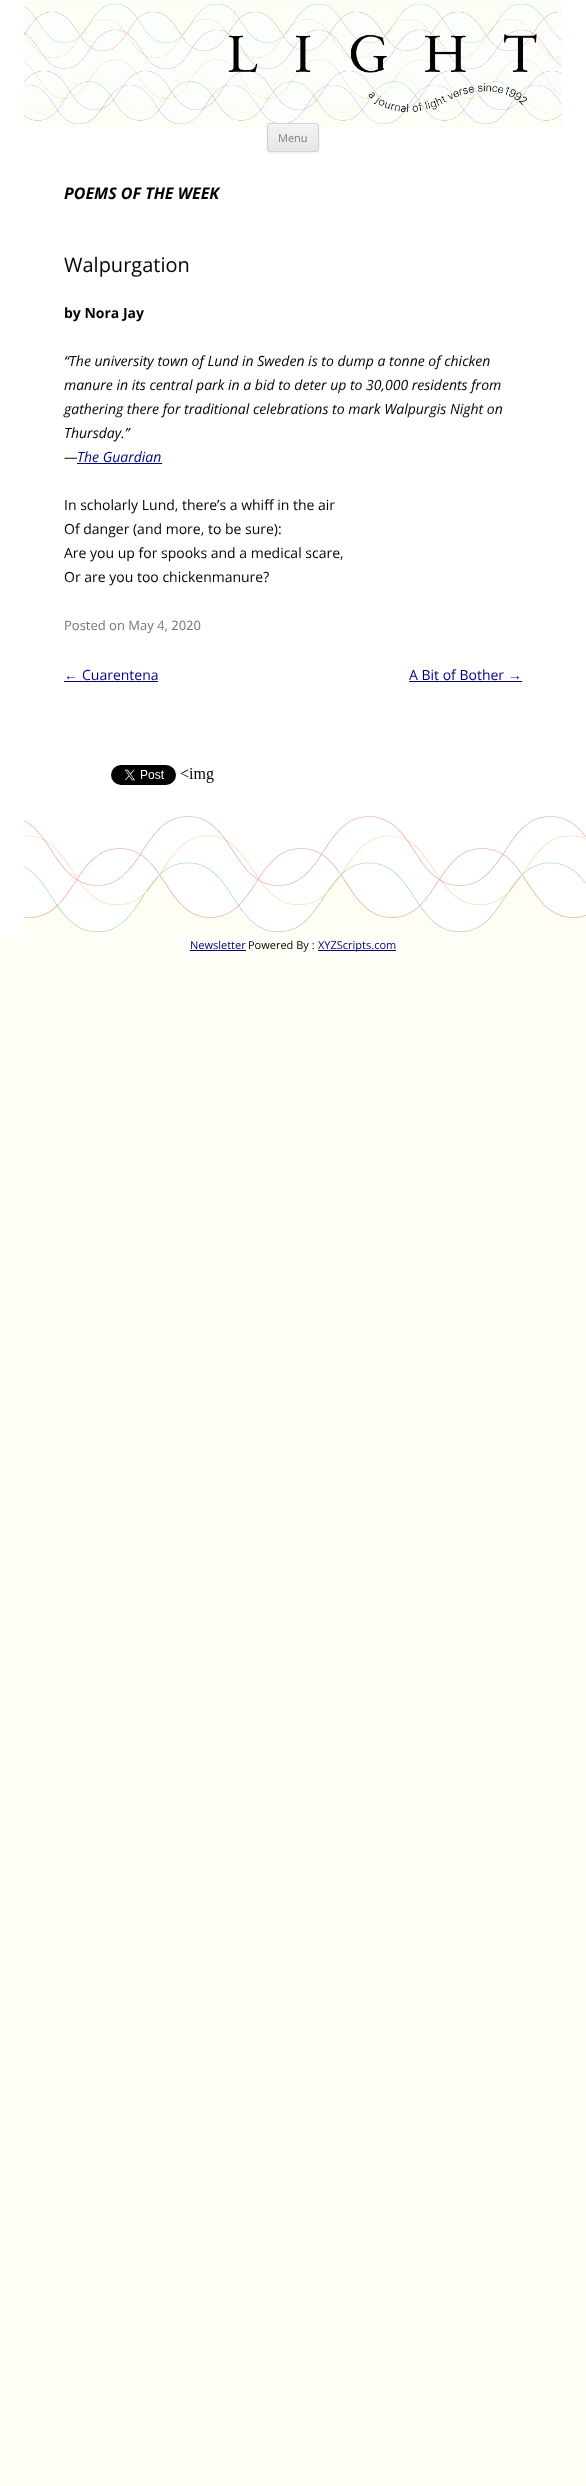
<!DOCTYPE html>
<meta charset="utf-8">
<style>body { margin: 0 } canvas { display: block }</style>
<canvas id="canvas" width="586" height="2486"></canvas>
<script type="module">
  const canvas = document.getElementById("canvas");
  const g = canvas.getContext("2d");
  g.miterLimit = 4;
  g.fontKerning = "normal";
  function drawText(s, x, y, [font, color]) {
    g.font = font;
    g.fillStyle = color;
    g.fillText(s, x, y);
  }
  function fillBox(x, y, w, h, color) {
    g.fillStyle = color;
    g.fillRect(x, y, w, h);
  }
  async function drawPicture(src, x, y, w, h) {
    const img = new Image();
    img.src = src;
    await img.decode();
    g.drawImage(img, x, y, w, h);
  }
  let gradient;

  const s1 = ["11px Open Sans", "#7C7C7C"];
  const s2 = ["italic bold 16px Open Sans", "#000000"];
  const s3 = ["20px Open Sans", "#000000"];
  const s4 = ["bold 14px Open Sans", "#000000"];
  const s5 = ["italic 14px Open Sans", "#000000"];
  const s6 = ["italic 14px Open Sans", "#000080"];
  const s7 = ["14px Open Sans", "#000000"];
  const s8 = ["13px Open Sans", "#757575"];
  const s9 = ["14px Liberation Sans", "#000080"];
  const s10 = ["14px Open Sans", "#000080"];
  const s11 = ["11px Open Sans", "#000080"];
  const s12 = ["11px Open Sans", "#000000"];

  fillBox(0, 0, 586, 2486, "#FFFEF6");
  fillBox(0, 0, 586, 939, "#FFFFFF");
  await drawPicture("pic1.png", 24, 1, 538, 127);
  g.fillStyle = "rgba(64, 64, 64, 0.1)";
  g.filter = "blur(1px)";
  g.beginPath();
  g.roundRect(267, 124, 52, 29, 3);
  g.fill();
  g.filter = "none";
  g.save();
  g.beginPath();
  g.roundRect(267, 123, 52, 29, 3);
  g.clip();
  gradient = g.createLinearGradient(293, 124, 293, 151);
  gradient.addColorStop(0, "#F4F4F4");
  gradient.addColorStop(1, "#E6E6E6");
  g.fillStyle = gradient;
  g.fillRect(267, 124, 52, 27);
  g.restore();
  g.beginPath();
  g.roundRect(267.5, 123.5, 51, 28, 2.5);
  g.strokeStyle = "#D2D2D2";
  g.stroke();
  drawText("Menu", 278, 142, s1);
  drawText("POEMS OF THE WEEK", 64, 199, s2);
  drawText("Walpurgation", 64, 272, s3);
  drawText("by Nora Jay", 64, 318, s4);
  drawText("“The university town of Lund in Sweden is to dump a tonne of chicken", 64, 366, s5);
  drawText("manure in its central park in a bid to deter up to 30,000 residents from", 64, 390, s5);
  drawText("gathering there for traditional celebrations to mark Walpurgis Night on", 64, 414, s5);
  drawText("Thursday.”", 64, 438, s5);
  drawText("—", 64, 462, s5);
  fillBox(77, 463, 85, 1, "#000080");
  drawText("The Guardian", 77, 462, s6);
  drawText("In scholarly Lund, there’s a whiff in the air", 64, 510, s7);
  drawText("Of danger (and more, to be sure):", 64, 534, s7);
  drawText("Are you up for spooks and a medical scare,", 64, 558, s7);
  drawText("Or are you too chickenmanure?", 64, 582, s7);
  drawText("Posted on May 4, 2020", 64, 630, s8);
  drawText("←", 64, 680, s9);
  fillBox(64, 681, 94, 1, "#000080");
  drawText("Cuarentena", 82, 680, s10);
  drawText("A Bit of Bother", 409, 680, s10);
  drawText("→", 508, 680, s9);
  fillBox(409, 681, 113, 1, "#000080");
  await drawPicture("pic2.png", 111, 765, 65, 20);
  await drawPicture("pic3.png", 180, 768, 34, 15);
  await drawPicture("pic4.png", 24, 816, 562, 121);
  drawText("Newsletter", 190, 949, s11);
  fillBox(190, 950, 56, 1, "#000080");
  drawText("Powered By :", 248, 949, s12);
  fillBox(318, 950, 78, 1, "#000080");
  drawText("XYZScripts.com", 318, 949, s11);
</script>
